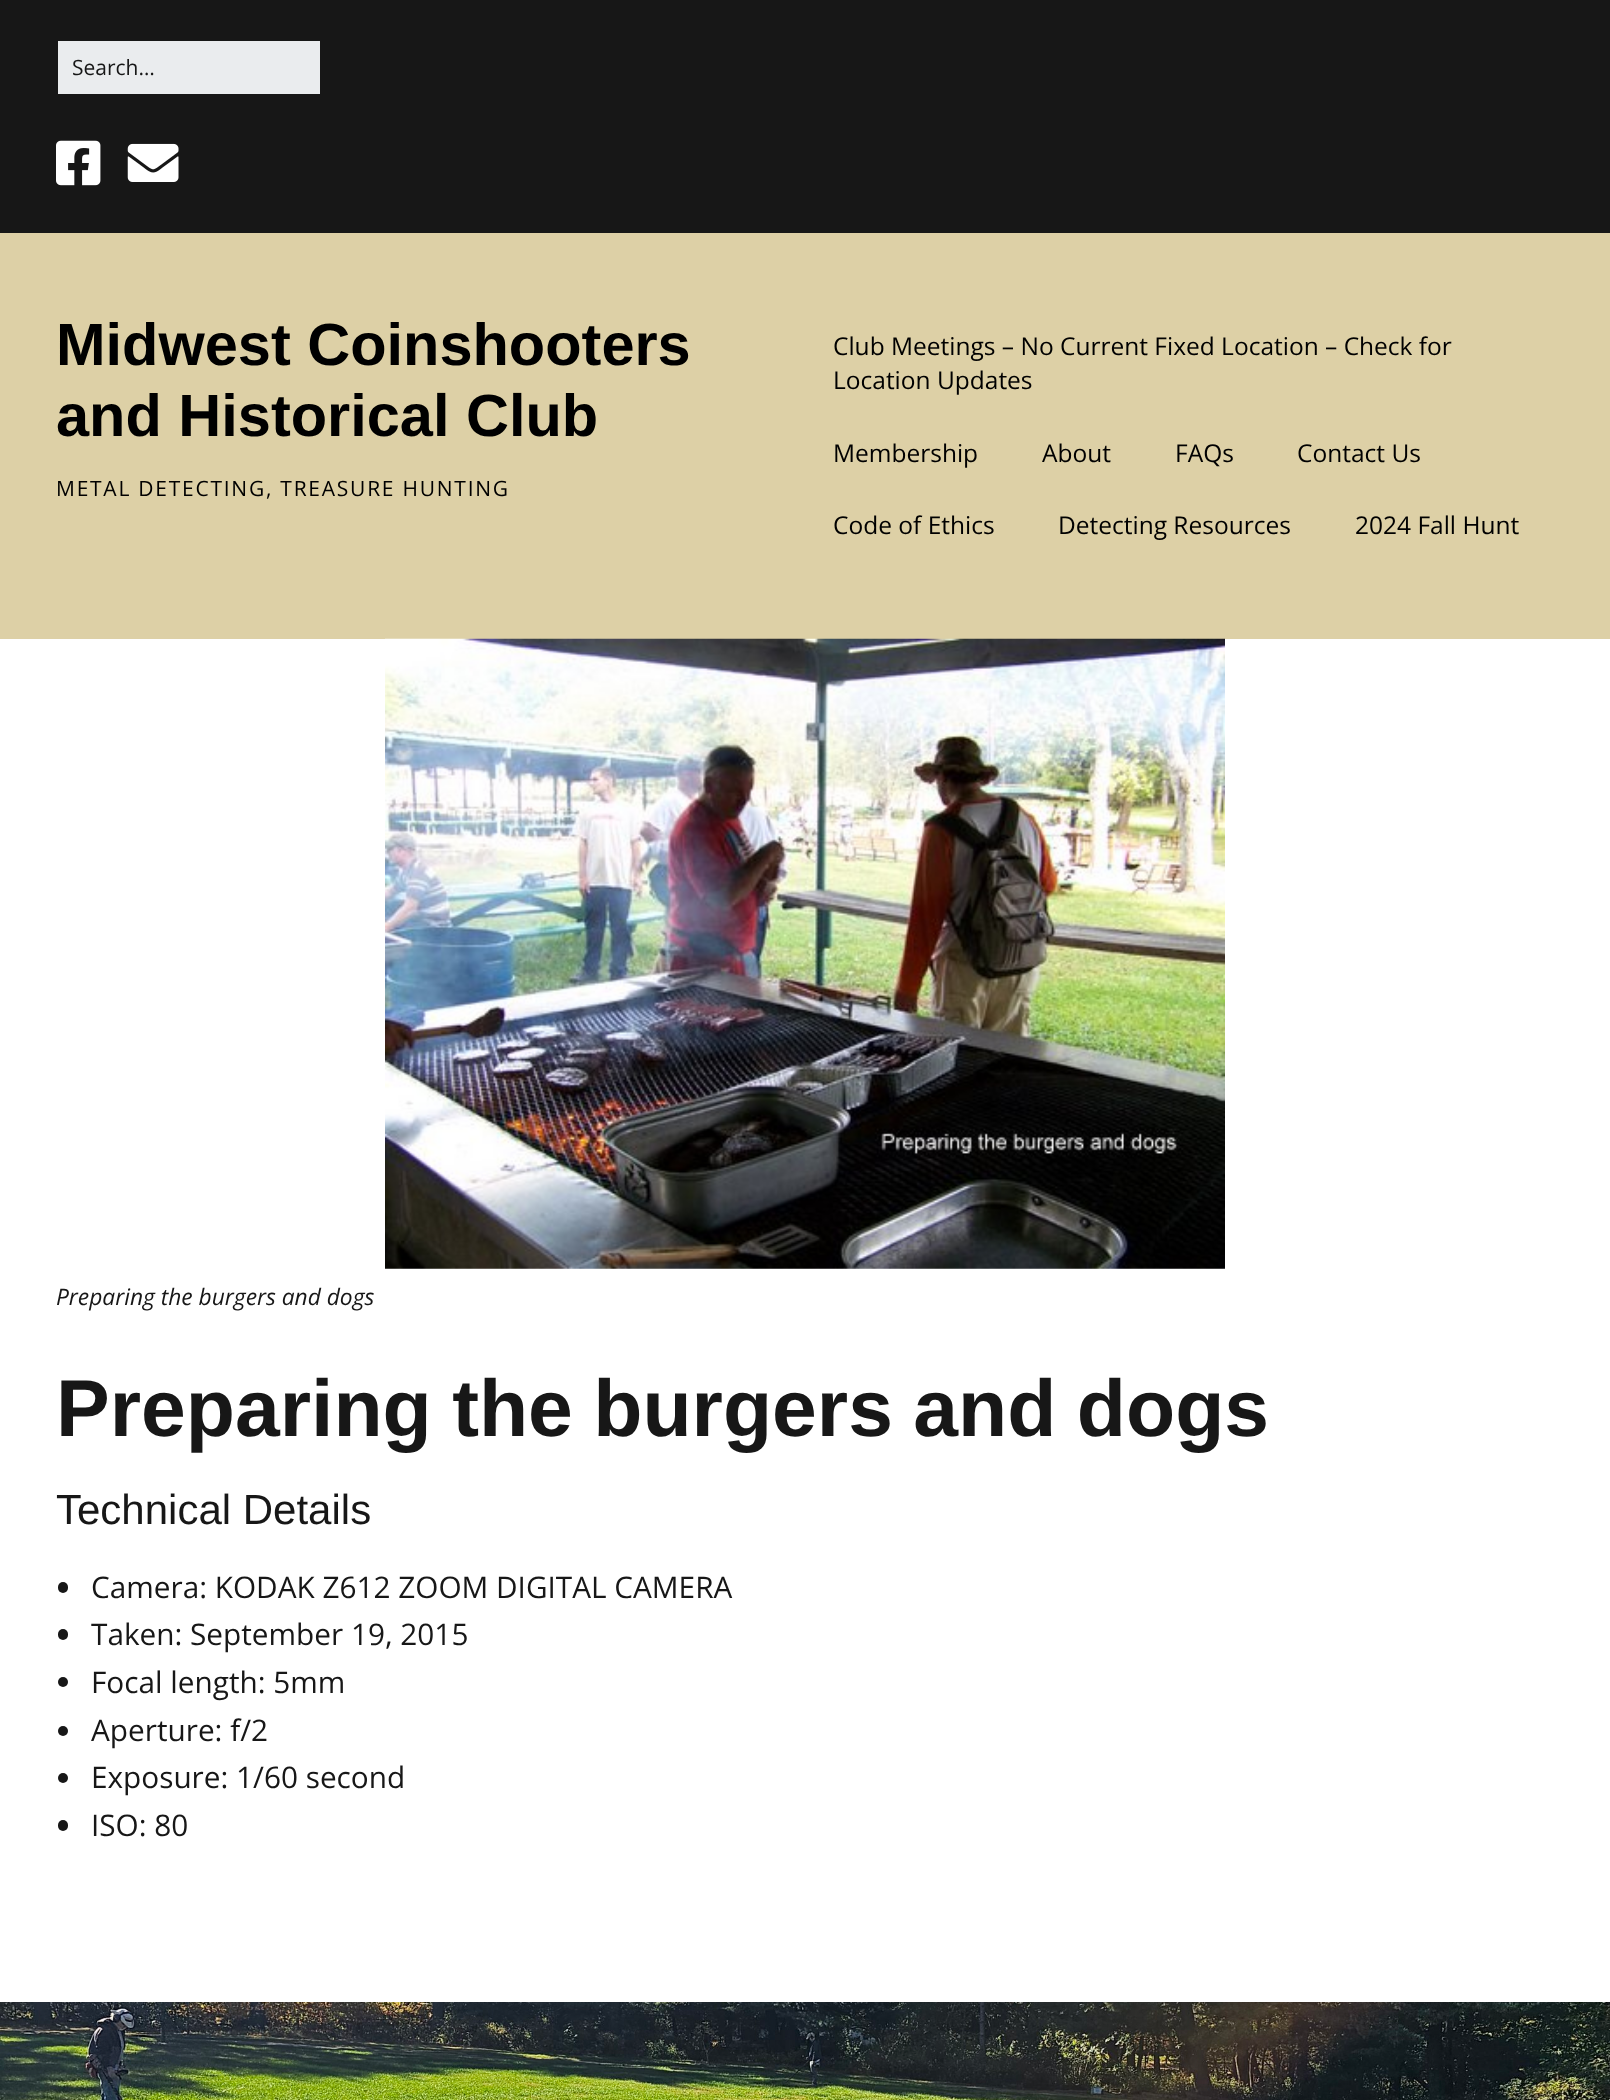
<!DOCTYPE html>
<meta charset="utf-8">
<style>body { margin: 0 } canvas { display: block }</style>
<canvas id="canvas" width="1610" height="2100"></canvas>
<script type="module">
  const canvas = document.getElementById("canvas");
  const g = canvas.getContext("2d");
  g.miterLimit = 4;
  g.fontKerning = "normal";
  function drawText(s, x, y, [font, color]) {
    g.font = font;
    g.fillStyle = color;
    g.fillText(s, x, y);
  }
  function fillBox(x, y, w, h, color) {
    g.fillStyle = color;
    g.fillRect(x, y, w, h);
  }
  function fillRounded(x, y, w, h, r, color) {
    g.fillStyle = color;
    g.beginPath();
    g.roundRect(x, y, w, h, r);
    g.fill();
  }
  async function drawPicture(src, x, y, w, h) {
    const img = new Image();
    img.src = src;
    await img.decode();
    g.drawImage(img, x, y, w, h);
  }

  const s1 = ["21px Open Sans", "#171717"];
  const s2 = ["bold 59.5px Liberation Sans", "#000000"];
  const s3 = ["21px Open Sans", "#000000"];
  const s4 = ["24.5px Open Sans", "#000000"];
  const s5 = ["italic 22.75px Open Sans", "#171717"];
  const s6 = ["bold 80.5px Liberation Sans", "#171717"];
  const s7 = ["42px Liberation Sans", "#171717"];
  const s8 = ["29.75px Open Sans", "#171717"];

  fillBox(0, 0, 1610, 2100, "#171717");
  fillBox(58, 41, 262, 53, "#EAECEE");
  drawText("Search…", 72, 75, s1);
  await drawPicture("pic1.png", 56, 140, 45, 46);
  await drawPicture("pic2.png", 127, 143, 52, 39);
  fillBox(0, 233, 1610, 406, "#DDD0A6");
  drawText("Midwest Coinshooters", 56, 365, s2);
  drawText("and Historical Club", 56, 436, s2);
  g.letterSpacing = "1.75px";
  drawText("METAL DETECTING, TREASURE HUNTING", 56, 496, s3);
  g.letterSpacing = "0px";
  drawText("Club Meetings – No Current Fixed Location – Check for", 833, 355, s4);
  drawText("Location Updates", 833, 389, s4);
  drawText("Membership", 833, 462, s4);
  drawText("About", 1042, 462, s4);
  drawText("FAQs", 1175, 462, s4);
  drawText("Contact Us", 1297, 462, s4);
  drawText("Code of Ethics", 833, 534, s4);
  drawText("Detecting Resources", 1058, 534, s4);
  drawText("2024 Fall Hunt", 1355, 534, s4);
  fillBox(0, 639, 1610, 1363, "#FFFFFF");
  await drawPicture("pic3.png", 385, 638, 840, 631);
  drawText("Preparing the burgers and dogs", 56, 1305, s5);
  g.wordSpacing = "-2px";
  drawText("Preparing the burgers and dogs", 56, 1436, s6);
  g.wordSpacing = "0px";
  drawText("Technical Details", 56, 1524, s7);
  fillRounded(58, 1582, 10, 11, 5, "#171717");
  drawText("Camera: KODAK Z612 ZOOM DIGITAL CAMERA", 91, 1598, s8);
  fillRounded(58, 1629, 10, 11, 5, "#171717");
  drawText("Taken: September 19, 2015", 91, 1645, s8);
  g.beginPath();
  g.arc(63, 1682, 5, 0, Math.PI * 2);
  g.fill();
  drawText("Focal length: 5mm", 91, 1693, s8);
  g.beginPath();
  g.arc(63, 1731, 5, 0, Math.PI * 2);
  g.fill();
  drawText("Aperture: f/2", 91, 1741, s8);
  g.beginPath();
  g.arc(63, 1778, 5, 0, Math.PI * 2);
  g.fill();
  drawText("Exposure: 1/60 second", 91, 1788, s8);
  fillRounded(58, 1820, 10, 11, 5, "#171717");
  drawText("ISO: 80", 91, 1836, s8);
  await drawPicture("pic4.png", 0, 2002, 1610, 98);
</script>
